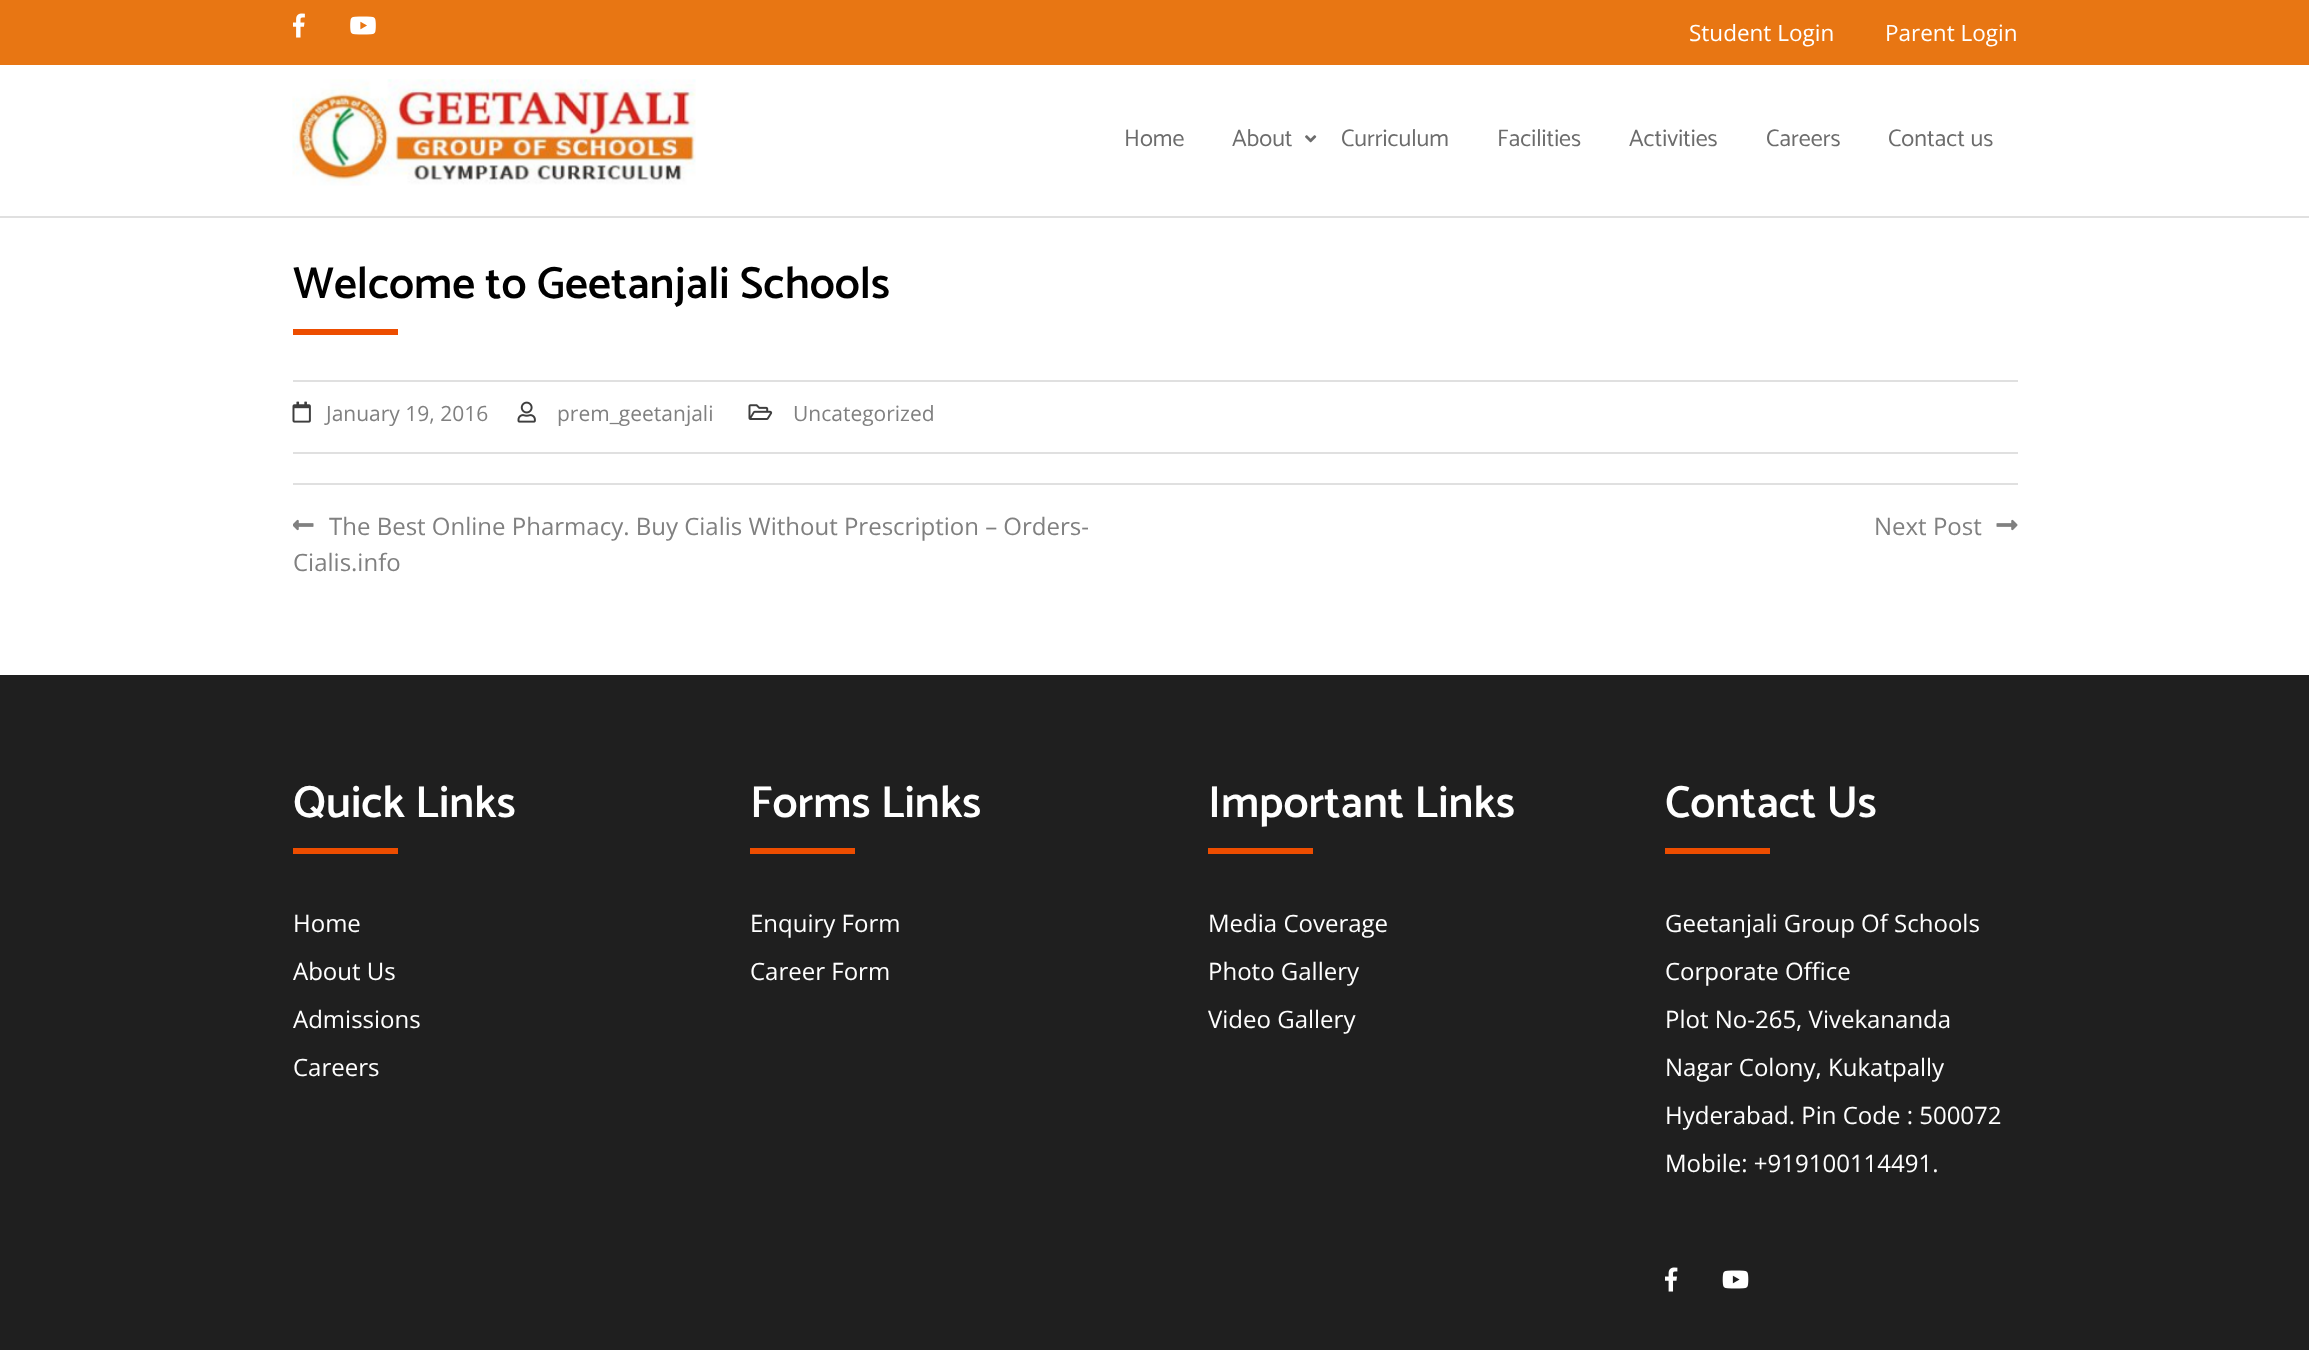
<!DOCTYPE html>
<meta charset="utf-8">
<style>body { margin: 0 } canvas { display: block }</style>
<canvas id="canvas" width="2309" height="1350"></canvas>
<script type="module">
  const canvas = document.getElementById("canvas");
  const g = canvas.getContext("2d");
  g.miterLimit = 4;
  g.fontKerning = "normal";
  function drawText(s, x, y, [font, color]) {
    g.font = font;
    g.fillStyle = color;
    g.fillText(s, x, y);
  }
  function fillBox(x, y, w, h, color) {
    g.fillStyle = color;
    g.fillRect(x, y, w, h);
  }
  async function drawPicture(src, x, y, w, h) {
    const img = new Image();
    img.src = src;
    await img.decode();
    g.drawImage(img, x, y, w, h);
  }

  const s1 = ["22.5px Open Sans", "#FFFFFF"];
  const s2 = ["24px Catamaran", "#6C6C6C"];
  const s3 = ["600 45px Catamaran", "#000000"];
  const s4 = ["21px Open Sans", "#808080"];
  const s5 = ["24px Open Sans", "#808080"];
  const s6 = ["600 45px Catamaran", "#FFFFFF"];
  const s7 = ["24px Open Sans", "#FFFFFF"];

  fillBox(0, 0, 2309, 1350, "#FFFFFF");
  fillBox(0, 216, 2309, 2, "#E0E0E0");
  fillBox(0, 0, 2309, 65, "#E87613");
  await drawPicture("pic1.png", 293, 13, 12, 25);
  await drawPicture("pic2.png", 350, 16, 26, 19);
  drawText("Student Login", 1689, 41, s1);
  drawText("Parent Login", 1885, 41, s1);
  await drawPicture("pic3.png", 292, 79, 404, 107);
  drawText("Home", 1124, 146, s2);
  drawText("About", 1232, 146, s2);
  await drawPicture("pic4.png", 1305, 135, 12, 8);
  drawText("Curriculum", 1341, 146, s2);
  drawText("Facilities", 1497, 146, s2);
  drawText("Activities", 1629, 146, s2);
  drawText("Careers", 1766, 146, s2);
  drawText("Contact us", 1888, 146, s2);
  drawText("Welcome to Geetanjali Schools", 293, 298, s3);
  fillBox(293, 329, 105, 6, "#ED4D00");
  fillBox(293, 380, 1725, 2, "#E0E0E0");
  fillBox(293, 452, 1725, 2, "#E0E0E0");
  await drawPicture("pic5.png", 292, 401, 19, 22);
  drawText("January 19, 2016", 326, 421, s4);
  await drawPicture("pic6.png", 517, 401, 19, 22);
  drawText("prem_geetanjali", 557, 421, s4);
  await drawPicture("pic7.png", 748, 404, 25, 16);
  drawText("Uncategorized", 793, 421, s4);
  fillBox(293, 483, 1725, 2, "#E0E0E0");
  await drawPicture("pic8.png", 293, 519, 21, 12);
  drawText("The Best Online Pharmacy. Buy Cialis Without Prescription – Orders-", 329, 535, s5);
  drawText("Cialis.info", 293, 571, s5);
  drawText("Next Post", 1874, 535, s5);
  await drawPicture("pic9.png", 1996, 519, 22, 12);
  fillBox(0, 675, 2309, 675, "#1F1F1F");
  drawText("Quick Links", 293, 817, s6);
  fillBox(293, 848, 105, 6, "#ED4D00");
  drawText("Home", 293, 932, s7);
  drawText("About Us", 293, 980, s7);
  drawText("Admissions", 293, 1028, s7);
  drawText("Careers", 293, 1076, s7);
  drawText("Forms Links", 750, 817, s6);
  fillBox(750, 848, 105, 6, "#ED4D00");
  drawText("Enquiry Form", 750, 932, s7);
  drawText("Career Form", 750, 980, s7);
  drawText("Important Links", 1208, 817, s6);
  fillBox(1208, 848, 105, 6, "#ED4D00");
  drawText("Media Coverage", 1208, 932, s7);
  drawText("Photo Gallery", 1208, 980, s7);
  drawText("Video Gallery", 1208, 1028, s7);
  drawText("Contact Us", 1665, 817, s6);
  fillBox(1665, 848, 105, 6, "#ED4D00");
  drawText("Geetanjali Group Of Schools", 1665, 932, s7);
  drawText("Corporate Office", 1665, 980, s7);
  drawText("Plot No-265, Vivekananda", 1665, 1028, s7);
  drawText("Nagar Colony, Kukatpally", 1665, 1076, s7);
  drawText("Hyderabad. Pin Code : 500072", 1665, 1124, s7);
  drawText("Mobile: +919100114491.", 1665, 1172, s7);
  await drawPicture("pic10.png", 1665, 1267, 13, 25);
  await drawPicture("pic11.png", 1722, 1270, 27, 19);
</script>
